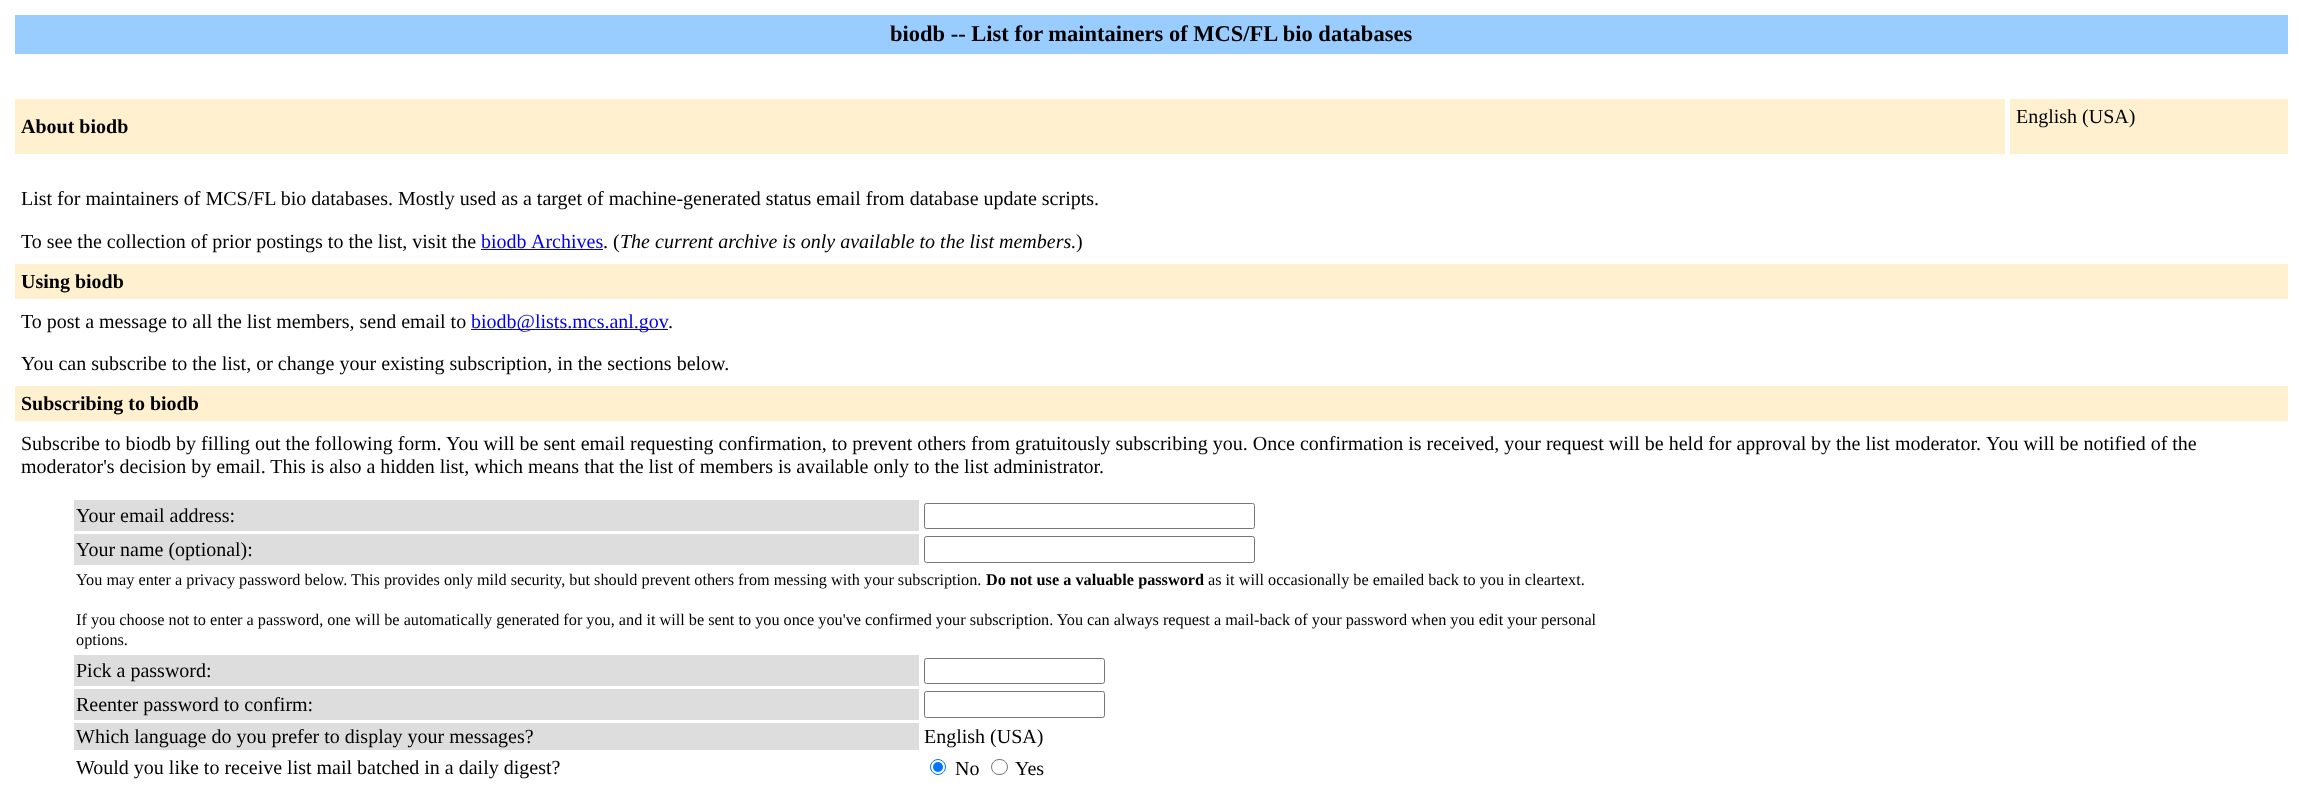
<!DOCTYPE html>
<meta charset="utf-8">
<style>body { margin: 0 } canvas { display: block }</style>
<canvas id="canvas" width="2302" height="801"></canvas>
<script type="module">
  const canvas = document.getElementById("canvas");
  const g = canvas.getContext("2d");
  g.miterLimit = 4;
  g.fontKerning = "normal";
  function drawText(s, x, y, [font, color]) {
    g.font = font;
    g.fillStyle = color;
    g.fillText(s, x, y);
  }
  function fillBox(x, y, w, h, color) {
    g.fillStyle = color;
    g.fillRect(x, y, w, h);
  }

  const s1 = ["bold 22.5px Liberation Serif", "#000000"];
  const s2 = ["bold 20px Liberation Serif", "#000000"];
  const s3 = ["20px Liberation Serif", "#000000"];
  const s4 = ["20px Liberation Serif", "#0000EE"];
  const s5 = ["italic 20px Liberation Serif", "#000000"];
  const s6 = ["16.25px Liberation Serif", "#000000"];
  const s7 = ["bold 16.25px Liberation Serif", "#000000"];

  fillBox(0, 0, 2302, 801, "#FFFFFF");
  fillBox(15, 15, 2273, 39, "#99CCFF");
  drawText("biodb -- List for maintainers of MCS/FL bio databases", 890, 41, s1);
  fillBox(15, 99, 1990, 55, "#FFF0D0");
  drawText("About biodb", 21, 133, s2);
  fillBox(2010, 99, 278, 55, "#FFF0D0");
  drawText("English (USA)", 2016, 123, s3);
  drawText("List for maintainers of MCS/FL bio databases. Mostly used as a target of machine-generated status email from database update scripts.", 21, 205, s3);
  drawText("To see the collection of prior postings to the list, visit the", 21, 248, s3);
  drawText("biodb", 481, 248, s4);
  fillBox(481, 249, 122, 1, "#0000EE");
  drawText("Archives", 531, 248, s4);
  drawText(". (", 603, 248, s3);
  drawText("The current archive is only available to the list members.", 620, 248, s5);
  drawText(")", 1076, 248, s3);
  fillBox(15, 264, 2273, 35, "#FFF0D0");
  drawText("Using biodb", 21, 288, s2);
  drawText("To post a message to all the list members, send email to", 21, 328, s3);
  fillBox(471, 329, 197, 1, "#0000EE");
  drawText("biodb@lists.mcs.anl.gov", 471, 328, s4);
  drawText(".", 668, 328, s3);
  drawText("You can subscribe to the list, or change your existing subscription, in the sections below.", 21, 370, s3);
  fillBox(15, 386, 2273, 35, "#FFF0D0");
  drawText("Subscribing to biodb", 21, 410, s2);
  drawText("Subscribe to biodb by filling out the following form.", 21, 450, s3);
  drawText("You will be sent email requesting confirmation, to prevent others from gratuitously subscribing you. Once confirmation is received, your request will be held for approval", 446, 450, s3);
  drawText("by the list moderator.", 1811, 450, s3);
  drawText("You will be notified of the", 1986, 450, s3);
  drawText("moderator's decision by email. This is also a hidden list, which means that the list of members is available only to the list administrator.", 21, 473, s3);
  fillBox(74, 500, 845, 31, "#DDDDDD");
  drawText("Your email address:", 76, 522, s3);
  g.beginPath();
  g.roundRect(924.5, 503.5, 330, 25, 2);
  g.strokeStyle = "#767676";
  g.stroke();
  fillBox(74, 534, 845, 31, "#DDDDDD");
  drawText("Your name (optional):", 76, 556, s3);
  g.beginPath();
  g.roundRect(924.5, 536.5, 330, 26, 2);
  g.stroke();
  drawText("You may enter a privacy password below. This provides only mild security, but should prevent others from messing with your subscription.", 76, 585, s6);
  drawText("Do not use a valuable password", 986, 585, s7);
  drawText("as it will occasionally be emailed back to you in cleartext.", 1208, 585, s6);
  drawText("If you choose not to enter a password, one will be automatically generated for you, and it will be sent to you once you've confirmed your subscription. You can always request a mail-back of your password when you edit your personal", 76, 625, s6);
  drawText("options.", 76, 645, s6);
  fillBox(74, 655, 845, 31, "#DDDDDD");
  drawText("Pick a password:", 76, 677, s3);
  g.beginPath();
  g.roundRect(924.5, 658.5, 180, 25, 2);
  g.stroke();
  fillBox(74, 689, 845, 31, "#DDDDDD");
  drawText("Reenter password to confirm:", 76, 711, s3);
  g.beginPath();
  g.roundRect(924.5, 691.5, 180, 26, 2);
  g.stroke();
  fillBox(74, 723, 845, 27, "#DDDDDD");
  drawText("Which language do you prefer to display your messages?", 76, 743, s3);
  drawText("English (USA)", 924, 743, s3);
  drawText("Would you like to receive list mail batched in a daily digest?", 76, 774, s3);
  g.beginPath();
  g.arc(938, 767, 7.5, 0, Math.PI * 2);
  g.strokeStyle = "#0075FF";
  g.stroke();
  g.fillStyle = "#0075FF";
  g.beginPath();
  g.arc(938, 767, 5, 0, Math.PI * 2);
  g.fill();
  drawText("No", 955, 775, s3);
  g.beginPath();
  g.roundRect(991.5, 759.5, 16, 15, 7.5);
  g.strokeStyle = "#767676";
  g.stroke();
  drawText("Yes", 1015, 775, s3);
</script>
